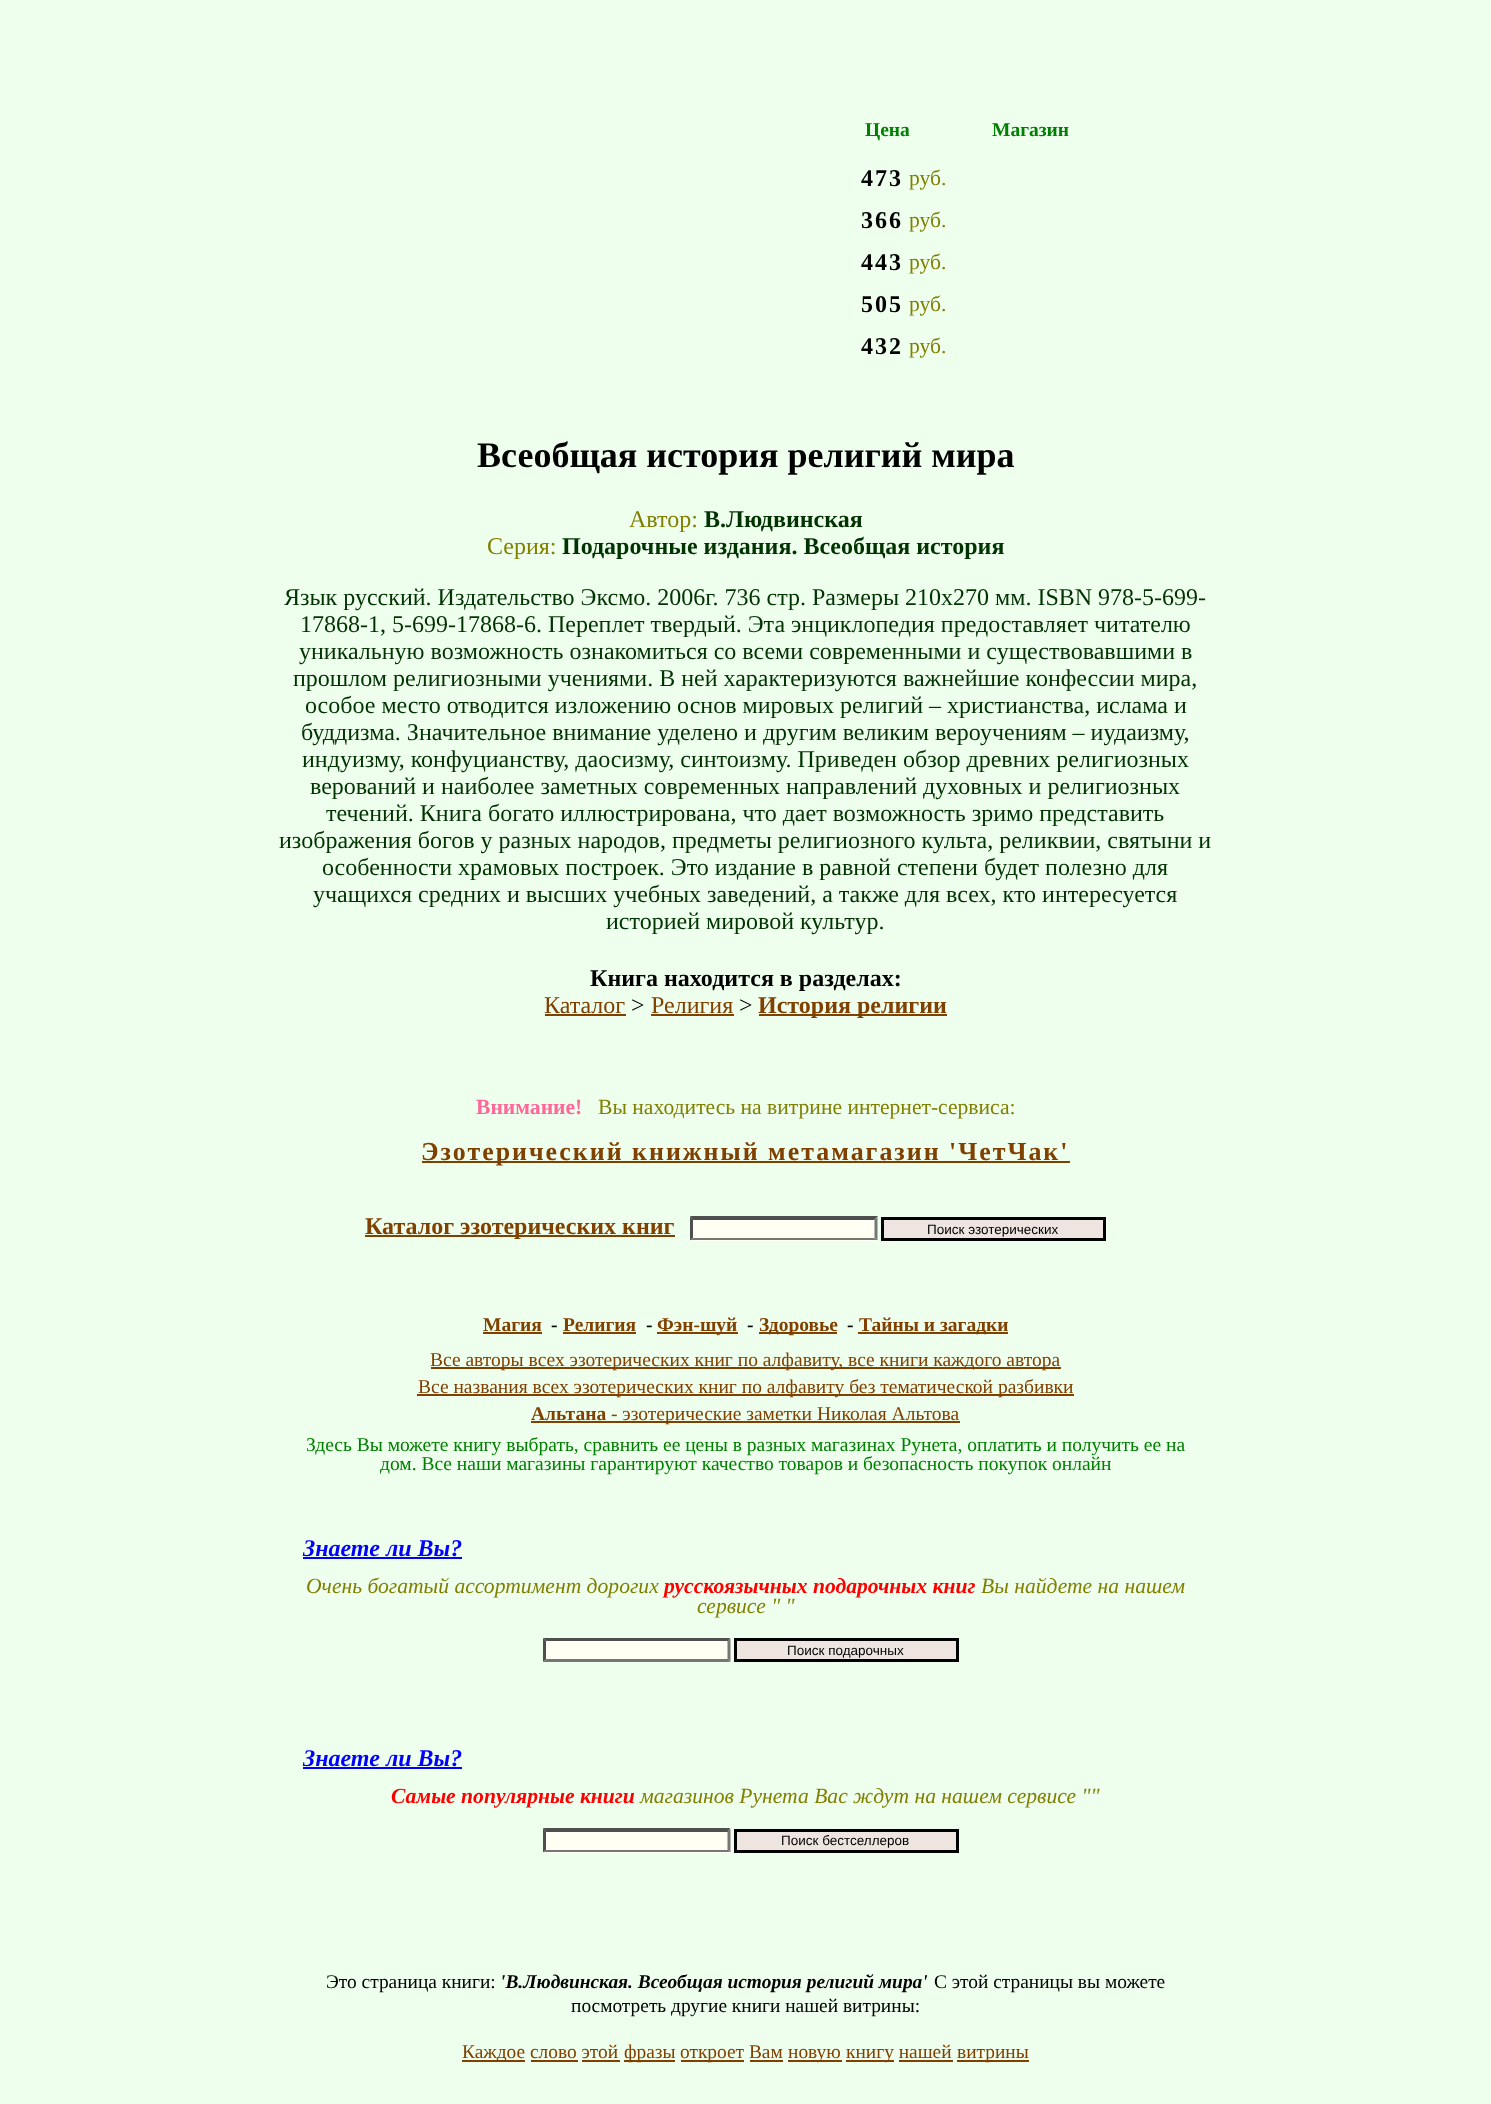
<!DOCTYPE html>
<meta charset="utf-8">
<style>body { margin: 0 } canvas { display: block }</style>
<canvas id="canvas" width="1491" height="2104"></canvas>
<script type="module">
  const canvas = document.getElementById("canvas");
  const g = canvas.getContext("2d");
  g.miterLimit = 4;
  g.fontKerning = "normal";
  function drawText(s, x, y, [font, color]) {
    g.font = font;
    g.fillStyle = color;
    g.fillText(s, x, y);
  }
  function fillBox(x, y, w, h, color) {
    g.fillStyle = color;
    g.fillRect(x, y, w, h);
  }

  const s1 = ["bold 19.5px Liberation Serif", "#008000"];
  const s2 = ["bold 24px Liberation Serif", "#000000"];
  const s3 = ["21.6px Liberation Serif", "#808000"];
  const s4 = ["bold 36px Liberation Serif", "#000000"];
  const s5 = ["24px Liberation Serif", "#808000"];
  const s6 = ["bold 24px Liberation Serif", "#003300"];
  const s7 = ["24px Liberation Serif", "#003300"];
  const s8 = ["24px Liberation Serif", "#804000"];
  const s9 = ["24px Liberation Serif", "#000000"];
  const s10 = ["bold 24px Liberation Serif", "#804000"];
  const s11 = ["bold 21.6px Liberation Serif", "#FF6699"];
  const s12 = ["bold 25.9px Liberation Serif", "#804000"];
  const s13 = ["13.5px Liberation Sans", "#000000"];
  const s14 = ["bold 19.5px Liberation Serif", "#804000"];
  const s15 = ["bold 19.5px Liberation Serif", "#000000"];
  const s16 = ["19.5px Liberation Serif", "#804000"];
  const s17 = ["19.5px Liberation Serif", "#008000"];
  const s18 = ["italic bold 24px Liberation Serif", "#0000FF"];
  const s19 = ["italic 21.6px Liberation Serif", "#808000"];
  const s20 = ["italic bold 21.6px Liberation Serif", "#FF0000"];
  const s21 = ["19.4px Liberation Serif", "#000000"];
  const s22 = ["italic bold 19.4px Liberation Serif", "#000000"];
  const s23 = ["19.4px Liberation Serif", "#804000"];

  fillBox(0, 0, 1491, 2104, "#EEFFEE");
  drawText("Цена", 865, 136, s1);
  drawText("Магазин", 992, 136, s1);
  g.letterSpacing = "2px";
  drawText("473", 861, 186, s2);
  g.letterSpacing = "0px";
  drawText("руб.", 909, 185, s3);
  g.letterSpacing = "2px";
  drawText("366", 861, 228, s2);
  g.letterSpacing = "0px";
  drawText("руб.", 909, 227, s3);
  g.letterSpacing = "2px";
  drawText("443", 861, 270, s2);
  g.letterSpacing = "0px";
  drawText("руб.", 909, 269, s3);
  g.letterSpacing = "2px";
  drawText("505", 861, 312, s2);
  g.letterSpacing = "0px";
  drawText("руб.", 909, 311, s3);
  g.letterSpacing = "2px";
  drawText("432", 861, 354, s2);
  g.letterSpacing = "0px";
  drawText("руб.", 909, 353, s3);
  drawText("Всеобщая история религий мира", 477, 467, s4);
  drawText("Автор:", 629, 527, s5);
  drawText("В.Людвинская", 704, 527, s6);
  drawText("Серия:", 487, 554, s5);
  drawText("Подарочные издания. Всеобщая история", 562, 554, s6);
  drawText("Язык русский. Издательство Эксмо. 2006г. 736 стр. Размеры 210х270 мм. ISBN 978-5-699-", 284, 605, s7);
  drawText("17868-1, 5-699-17868-6. Переплет твердый. Эта энциклопедия предоставляет читателю", 300, 632, s7);
  drawText("уникальную возможность ознакомиться со всеми современными и существовавшими в", 299, 659, s7);
  drawText("прошлом религиозными учениями. В ней характеризуются важнейшие конфессии мира,", 293, 686, s7);
  drawText("особое место отводится изложению основ мировых религий – христианства, ислама и", 305, 713, s7);
  drawText("буддизма. Значительное внимание уделено и другим великим вероучениям – иудаизму,", 301, 740, s7);
  drawText("индуизму, конфуцианству, даосизму, синтоизму. Приведен обзор древних религиозных", 302, 767, s7);
  drawText("верований и наиболее заметных современных направлений духовных и религиозных", 310, 794, s7);
  drawText("течений. Книга богато иллюстрирована, что дает возможность зримо представить", 326, 821, s7);
  drawText("изображения богов у разных народов, предметы религиозного культа, реликвии, святыни и", 279, 848, s7);
  drawText("особенности храмовых построек. Это издание в равной степени будет полезно для", 322, 875, s7);
  drawText("учащихся средних и высших учебных заведений, а также для всех, кто интересуется", 313, 902, s7);
  drawText("историей мировой культур.", 606, 929, s7);
  drawText("Книга находится в разделах:", 590, 986, s2);
  drawText("Каталог", 544, 1013, s8);
  fillBox(545, 1014, 81, 2, "#804000");
  drawText(">", 631, 1013, s9);
  drawText("Религия", 651, 1013, s8);
  fillBox(651, 1014, 83, 2, "#804000");
  drawText(">", 739, 1013, s9);
  fillBox(759, 1014, 188, 2, "#804000");
  drawText("История религии", 758, 1013, s10);
  drawText("Внимание!", 476, 1114, s11);
  drawText("Вы находитесь на витрине интернет-сервиса:", 598, 1114, s3);
  fillBox(422, 1161, 648, 2, "#804000");
  g.letterSpacing = "2px";
  drawText("Эзотерический книжный метамагазин", 421, 1160, s12);
  drawText("'ЧетЧак'", 949, 1160, s12);
  fillBox(365, 1235, 310, 2, "#804000");
  g.letterSpacing = "0px";
  drawText("Каталог эзотерических книг", 365, 1234, s10);
  fillBox(690, 1217, 188, 24, "#FFFFF4");
  g.fillStyle = "#4F4F4F";
  g.beginPath();
  g.moveTo(690, 1216);
  g.lineTo(878, 1216);
  g.lineTo(874, 1220);
  g.lineTo(693, 1220);
  g.closePath();
  g.fill();
  g.fillStyle = "#767676";
  g.beginPath();
  g.moveTo(877.5, 1216.5);
  g.lineTo(877.5, 1240.5);
  g.lineTo(874.5, 1237.5);
  g.lineTo(874.5, 1219.5);
  g.closePath();
  g.fill();
  g.beginPath();
  g.moveTo(878, 1240);
  g.lineTo(690, 1240);
  g.lineTo(693, 1238);
  g.lineTo(874, 1238);
  g.closePath();
  g.fill();
  g.fillStyle = "#4F4F4F";
  g.beginPath();
  g.moveTo(690, 1240.5);
  g.lineTo(690, 1216.5);
  g.lineTo(693, 1219.5);
  g.lineTo(693, 1237.5);
  g.closePath();
  g.fill();
  g.fillStyle = "#EEE5E0";
  g.beginPath();
  g.rect(882.5, 1218.5, 222, 21);
  g.fill();
  g.strokeStyle = "#000000";
  g.lineWidth = 3;
  g.stroke();
  drawText("Поиск эзотерических", 927, 1234, s13);
  drawText("Магия", 483, 1331, s14);
  fillBox(483, 1332, 59, 2, "#804000");
  drawText("-", 551, 1331, s15);
  drawText("Религия", 563, 1331, s14);
  fillBox(563, 1332, 73, 2, "#804000");
  drawText("-", 646, 1331, s15);
  fillBox(657, 1332, 81, 2, "#804000");
  drawText("Фэн-шуй", 657, 1331, s14);
  drawText("-", 747, 1331, s15);
  fillBox(759, 1332, 78, 2, "#804000");
  drawText("Здоровье", 759, 1331, s14);
  drawText("-", 847, 1331, s15);
  fillBox(858, 1332, 150, 2, "#804000");
  drawText("Тайны и загадки", 859, 1331, s14);
  fillBox(431, 1367, 630, 2, "#804000");
  drawText("Все авторы всех эзотерических книг по алфавиту, все книги каждого автора", 430, 1366, s16);
  fillBox(417, 1394, 657, 2, "#804000");
  drawText("Все названия всех эзотерических книг по алфавиту без тематической разбивки", 418, 1393, s16);
  drawText("Альтана", 531, 1420, s14);
  fillBox(531, 1421, 429, 2, "#804000");
  drawText("- эзотерические заметки Николая Альтова", 611, 1420, s16);
  drawText("Здесь Вы можете книгу выбрать, сравнить ее цены в разных магазинах Рунета, оплатить и получить ее на", 306, 1451, s17);
  drawText("дом. Все наши магазины гарантируют качество товаров и безопасность покупок онлайн", 380, 1470, s17);
  drawText("Знаете ли Вы?", 303, 1556, s18);
  fillBox(303, 1557, 159, 2, "#0000FF");
  drawText("Очень богатый ассортимент дорогих", 306, 1593, s19);
  drawText("русскоязычных подарочных книг", 664, 1593, s20);
  drawText("Вы найдете на нашем", 981, 1593, s19);
  drawText("сервисе \" \"", 697, 1613, s19);
  fillBox(543, 1638, 188, 24, "#FFFFF4");
  g.fillStyle = "#4F4F4F";
  g.beginPath();
  g.moveTo(543, 1638);
  g.lineTo(730, 1638);
  g.lineTo(728, 1641);
  g.lineTo(546, 1641);
  g.closePath();
  g.fill();
  g.fillStyle = "#767676";
  g.beginPath();
  g.moveTo(730.5, 1638);
  g.lineTo(730.5, 1662);
  g.lineTo(727.5, 1659);
  g.lineTo(727.5, 1641);
  g.closePath();
  g.fill();
  g.beginPath();
  g.moveTo(730, 1662);
  g.lineTo(543, 1662);
  g.lineTo(546, 1659);
  g.lineTo(728, 1659);
  g.closePath();
  g.fill();
  g.fillStyle = "#4F4F4F";
  g.beginPath();
  g.moveTo(543, 1662);
  g.lineTo(543, 1638);
  g.lineTo(546, 1641);
  g.lineTo(546, 1659);
  g.closePath();
  g.fill();
  g.fillStyle = "#EEE5E0";
  g.beginPath();
  g.rect(735.5, 1639.5, 222, 21);
  g.fill();
  g.stroke();
  drawText("Поиск подарочных", 787, 1655, s13);
  drawText("Знаете ли Вы?", 303, 1766, s18);
  fillBox(303, 1767, 159, 2, "#0000FF");
  drawText("Самые популярные книги", 391, 1803, s20);
  drawText("магазинов Рунета Вас ждут на нашем сервисе \"\"", 640, 1803, s19);
  fillBox(543, 1829, 188, 24, "#FFFFF4");
  g.fillStyle = "#4F4F4F";
  g.beginPath();
  g.moveTo(543, 1828);
  g.lineTo(730, 1828);
  g.lineTo(728, 1832);
  g.lineTo(546, 1832);
  g.closePath();
  g.fill();
  g.fillStyle = "#767676";
  g.beginPath();
  g.moveTo(730.5, 1828.5);
  g.lineTo(730.5, 1852.5);
  g.lineTo(727.5, 1849.5);
  g.lineTo(727.5, 1831.5);
  g.closePath();
  g.fill();
  g.beginPath();
  g.moveTo(730, 1852);
  g.lineTo(543, 1852);
  g.lineTo(546, 1850);
  g.lineTo(728, 1850);
  g.closePath();
  g.fill();
  g.fillStyle = "#4F4F4F";
  g.beginPath();
  g.moveTo(543, 1852.5);
  g.lineTo(543, 1828.5);
  g.lineTo(546, 1831.5);
  g.lineTo(546, 1849.5);
  g.closePath();
  g.fill();
  g.fillStyle = "#EEE5E0";
  g.beginPath();
  g.rect(735.5, 1830.5, 222, 21);
  g.fill();
  g.stroke();
  drawText("Поиск бестселлеров", 781, 1845, s13);
  drawText("Это страница книги:", 326, 1988, s21);
  drawText("'В.Людвинская. Всеобщая история религий мира'", 500, 1988, s22);
  drawText("С этой страницы вы можете", 934, 1988, s21);
  drawText("посмотреть другие книги нашей витрины:", 571, 2012, s21);
  fillBox(462, 2060, 63, 2, "#804000");
  drawText("Каждое слово этой", 462, 2058, s23);
  fillBox(624, 2060, 51, 2, "#804000");
  drawText("фразы", 624, 2058, s23);
  fillBox(681, 2060, 63, 2, "#804000");
  drawText("откроет Вам", 680, 2058, s23);
  fillBox(788, 2060, 54, 2, "#804000");
  drawText("новую", 788, 2058, s23);
  fillBox(846, 2060, 48, 2, "#804000");
  drawText("книгу нашей", 846, 2058, s23);
  fillBox(957, 2060, 72, 2, "#804000");
  drawText("витрины", 957, 2058, s23);
  fillBox(531, 2060, 47, 2, "#804000");
  fillBox(582, 2060, 38, 2, "#804000");
  fillBox(750, 2060, 33, 2, "#804000");
  fillBox(899, 2060, 54, 2, "#804000");
</script>
